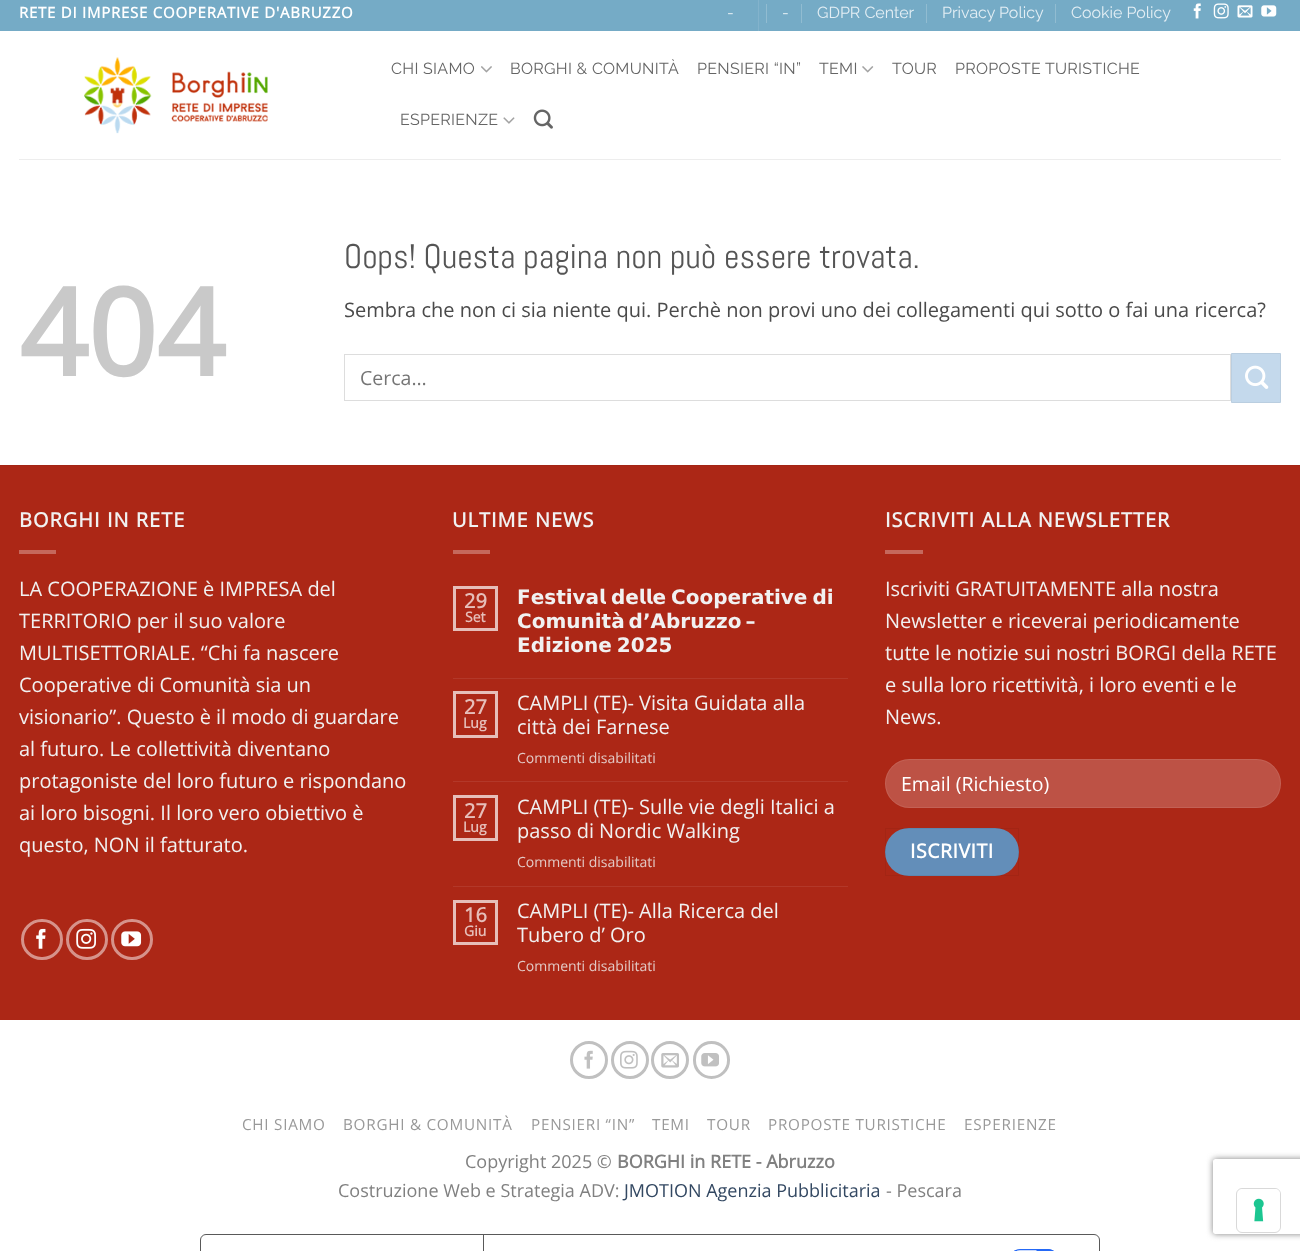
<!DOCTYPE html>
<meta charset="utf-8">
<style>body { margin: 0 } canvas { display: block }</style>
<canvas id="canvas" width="1300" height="1251"></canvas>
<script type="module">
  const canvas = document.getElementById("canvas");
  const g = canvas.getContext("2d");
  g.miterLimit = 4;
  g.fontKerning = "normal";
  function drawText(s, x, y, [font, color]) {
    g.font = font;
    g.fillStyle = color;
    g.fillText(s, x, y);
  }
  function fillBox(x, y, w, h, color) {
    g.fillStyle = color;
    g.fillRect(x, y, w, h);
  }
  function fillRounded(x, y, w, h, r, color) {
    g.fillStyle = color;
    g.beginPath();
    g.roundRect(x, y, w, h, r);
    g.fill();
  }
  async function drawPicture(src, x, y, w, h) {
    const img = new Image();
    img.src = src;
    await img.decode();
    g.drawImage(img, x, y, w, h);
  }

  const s1 = ["bold 15px Open Sans", "#FFFFFF"];
  const s2 = ["100 16px Raleway", "#E3EEF4"];
  const s3 = ["100 16px Raleway", "#656565"];
  const s4 = ["bold 120px Open Sans", "#C9C9C9"];
  const s5 = ["34px Abel", "#555555"];
  const s6 = ["20px Open Sans", "#4A4A4A"];
  const s7 = ["19.5px Open Sans", "#757575"];
  const s8 = ["bold 20px Open Sans", "#F1F1F1"];
  const s9 = ["20px Open Sans", "#F1F1F1"];
  const s10 = ["bold 20px Open Sans", "#E6BEB9"];
  const s11 = ["bold 14px Open Sans", "#E6BEB9"];
  const s12 = ["bold 20px DejaVu Sans", "#F1F1F1"];
  const s13 = ["14px Open Sans", "#E3C9C5"];
  const s14 = ["19.5px Open Sans", "#FFFFFF"];
  const s15 = ["bold 19.5px Open Sans", "#FFFFFF"];
  const s16 = ["15.25px Open Sans", "#999999"];
  const s17 = ["18px Open Sans", "#808080"];
  const s18 = ["bold 18px Open Sans", "#808080"];
  const s19 = ["18px Open Sans", "#334862"];

  fillBox(0, 0, 1300, 1251, "#FFFFFF");
  fillBox(0, 0, 1300, 31, "#75ABC6");
  g.letterSpacing = "0.75px";
  drawText("RETE DI IMPRESE COOPERATIVE D'ABRUZZO", 19, 18, s1);
  g.letterSpacing = "0px";
  drawText("-", 727, 18, s2);
  fillBox(758, 0, 1, 31, "#83B3CC");
  fillBox(766, 4, 1, 19, "#91BCD1");
  drawText("-", 782, 18, s2);
  fillBox(801, 4, 1, 19, "#91BCD1");
  drawText("GDPR Center", 817, 18, s2);
  fillBox(926, 4, 1, 19, "#91BCD1");
  drawText("Privacy Policy", 942, 18, s2);
  fillBox(1055, 4, 1, 19, "#91BCD1");
  drawText("Cookie Policy", 1071, 18, s2);
  await drawPicture("pic1.png", 1193, 3, 8, 16);
  await drawPicture("pic2.png", 1213, 3, 16, 16);
  await drawPicture("pic3.png", 1237, 5, 16, 13);
  await drawPicture("pic4.png", 1261, 5, 16, 12);
  await drawPicture("pic5.png", 84, 57, 184, 77);
  g.letterSpacing = "0.3px";
  drawText("CHI SIAMO", 391, 74, s3);
  await drawPicture("pic6.png", 481, 66, 11, 7);
  drawText("BORGHI & COMUNITÀ", 510, 74, s3);
  drawText("PENSIERI “IN”", 697, 74, s3);
  drawText("TEMI", 819, 74, s3);
  await drawPicture("pic7.png", 862, 66, 12, 7);
  drawText("TOUR", 892, 74, s3);
  drawText("PROPOSTE TURISTICHE", 955, 74, s3);
  drawText("ESPERIENZE", 400, 125, s3);
  await drawPicture("pic8.png", 503, 117, 12, 7);
  await drawPicture("pic9.png", 533, 109, 20, 20);
  fillBox(19, 159, 1262, 1, "#EDEDED");
  g.letterSpacing = "0px";
  drawText("404", 19, 376, s4);
  drawText("Oops! Questa pagina non può essere trovata.", 344, 268, s5);
  drawText("Sembra che non ci sia niente qui. Perchè non provi uno dei collegamenti qui sotto o fai una ricerca?", 344, 317, s6);
  g.strokeStyle = "#DDDDDD";
  g.strokeRect(344.5, 354.5, 886, 46);
  drawText("Cerca…", 360, 385, s7);
  g.fillStyle = "#C4D9EC";
  g.beginPath();
  g.rect(1231.5, 353.5, 49, 49);
  g.fill();
  g.strokeStyle = "#BACEE0";
  g.stroke();
  await drawPicture("pic10.png", 1245, 365, 24, 24);
  fillBox(0, 466, 1300, 554, "#AC2716");
  fillBox(0, 465, 1300, 1, "#A32515");
  g.letterSpacing = "1px";
  drawText("BORGHI IN RETE", 19, 527, s8);
  fillBox(19, 550, 37, 4, "#C5685C");
  g.letterSpacing = "0px";
  drawText("LA COOPERAZIONE è IMPRESA del", 19, 596, s9);
  drawText("TERRITORIO per il suo valore", 19, 628, s9);
  drawText("MULTISETTORIALE. “Chi fa nascere", 19, 660, s9);
  drawText("Cooperative di Comunità sia un", 19, 692, s9);
  drawText("visionario”. Questo è il modo di guardare", 19, 724, s9);
  drawText("al futuro. Le collettività diventano", 19, 756, s9);
  drawText("protagoniste del loro futuro e rispondano", 19, 788, s9);
  drawText("ai loro bisogni. Il loro vero obiettivo è", 19, 820, s9);
  drawText("questo, NON il fatturato.", 19, 852, s9);
  g.beginPath();
  g.roundRect(22.5, 920.5, 39, 38, 19);
  g.strokeStyle = "#D6938B";
  g.lineWidth = 3;
  g.stroke();
  await drawPicture("pic11.png", 36, 928, 10, 21);
  g.beginPath();
  g.roundRect(67.5, 920.5, 39, 38, 19);
  g.stroke();
  await drawPicture("pic12.png", 76, 928, 20, 21);
  g.beginPath();
  g.roundRect(112.5, 920.5, 39, 38, 19);
  g.stroke();
  await drawPicture("pic13.png", 121, 931, 21, 16);
  g.letterSpacing = "1px";
  drawText("ULTIME NEWS", 452, 527, s8);
  fillBox(453, 550, 37, 4, "#C5685C");
  g.strokeStyle = "#E6BEB9";
  g.strokeRect(454.5, 587.5, 42, 42);
  g.letterSpacing = "0px";
  drawText("29", 464, 608, s10);
  drawText("Set", 465, 622, s11);
  g.wordSpacing = "-2px";
  drawText("𝗙𝗲𝘀𝘁𝗶𝘃𝗮𝗹 𝗱𝗲𝗹𝗹𝗲 𝗖𝗼𝗼𝗽𝗲𝗿𝗮𝘁𝗶𝘃𝗲 𝗱𝗶", 517, 604, s12);
  g.wordSpacing = "-3px";
  drawText("𝗖𝗼𝗺𝘂𝗻𝗶𝘁à 𝗱’𝗔𝗯𝗿𝘂𝘇𝘇𝗼 –", 517, 628, s12);
  g.wordSpacing = "-2px";
  drawText("𝗘𝗱𝗶𝘇𝗶𝗼𝗻𝗲 𝟮𝟬𝟮𝟱", 517, 652, s12);
  fillBox(453, 678, 395, 1, "#B33829");
  g.strokeRect(454.5, 692.5, 42, 44);
  g.wordSpacing = "0px";
  drawText("27", 464, 714, s10);
  drawText("Lug", 463, 728, s11);
  drawText("CAMPLI (TE)- Visita Guidata alla", 517, 710, s9);
  drawText("città dei Farnese", 517, 734, s9);
  drawText("Commenti disabilitati", 517, 763, s13);
  fillBox(453, 781, 395, 1, "#B33829");
  g.strokeRect(454.5, 796.5, 42, 43);
  drawText("27", 464, 818, s10);
  drawText("Lug", 463, 832, s11);
  drawText("CAMPLI (TE)- Sulle vie degli Italici a", 517, 814, s9);
  drawText("passo di Nordic Walking", 517, 838, s9);
  drawText("Commenti disabilitati", 517, 867, s13);
  fillBox(453, 886, 395, 1, "#B33829");
  g.strokeRect(454.5, 901.5, 42, 42);
  drawText("16", 464, 922, s10);
  drawText("Giu", 464, 936, s11);
  drawText("CAMPLI (TE)- Alla Ricerca del", 517, 918, s9);
  drawText("Tubero d’ Oro", 517, 942, s9);
  drawText("Commenti disabilitati", 517, 971, s13);
  g.letterSpacing = "1px";
  drawText("ISCRIVITI ALLA NEWSLETTER", 885, 527, s8);
  fillBox(885, 550, 38, 4, "#C5685C");
  g.letterSpacing = "0px";
  drawText("Iscriviti GRATUITAMENTE alla nostra", 885, 596, s9);
  drawText("Newsletter e riceverai periodicamente", 885, 628, s9);
  drawText("tutte le notizie sui nostri BORGI della RETE", 885, 660, s9);
  drawText("e sulla loro ricettività, i loro eventi e le", 885, 692, s9);
  drawText("News.", 885, 724, s9);
  fillRounded(885, 759, 396, 49, 24.5, "#BD5245");
  g.beginPath();
  g.roundRect(885.5, 759.5, 395, 48, 24);
  g.strokeStyle = "rgba(255, 255, 255, 0.09)";
  g.lineWidth = 1;
  g.stroke();
  drawText("Email (Richiesto)", 901, 791, s14);
  fillRounded(885, 828, 134, 48, 24, "#638EB9");
  g.strokeStyle = "rgba(0, 0, 0, 0.05)";
  g.strokeRect(885.5, 828.5, 133, 47);
  g.letterSpacing = "0.5px";
  drawText("ISCRIVITI", 910, 858, s15);
  g.beginPath();
  g.arc(589, 1060, 17.5, 0, Math.PI * 2);
  g.strokeStyle = "#C0C0C0";
  g.lineWidth = 3;
  g.stroke();
  await drawPicture("pic14.png", 584, 1050, 9, 19);
  g.beginPath();
  g.arc(630, 1060, 17.5, 0, Math.PI * 2);
  g.stroke();
  await drawPicture("pic15.png", 620, 1050, 18, 19);
  g.beginPath();
  g.arc(670, 1060, 17.5, 0, Math.PI * 2);
  g.stroke();
  await drawPicture("pic16.png", 661, 1053, 18, 15);
  g.beginPath();
  g.roundRect(694.5, 1042.5, 34, 35, 17);
  g.stroke();
  await drawPicture("pic17.png", 701, 1053, 18, 14);
  g.letterSpacing = "0.75px";
  drawText("CHI SIAMO", 242, 1130, s16);
  drawText("BORGHI & COMUNITÀ", 343, 1130, s16);
  drawText("PENSIERI “IN”", 531, 1130, s16);
  drawText("TEMI", 652, 1130, s16);
  drawText("TOUR", 707, 1130, s16);
  drawText("PROPOSTE TURISTICHE", 768, 1130, s16);
  drawText("ESPERIENZE", 964, 1130, s16);
  g.letterSpacing = "0px";
  drawText("Copyright 2025 ©", 465, 1168, s17);
  drawText("BORGHI in RETE - Abruzzo", 617, 1168, s18);
  drawText("Costruzione Web e Strategia ADV:", 338, 1197, s17);
  drawText("JMOTION Agenzia Pubblicitaria", 624, 1197, s19);
  drawText("- Pescara", 886, 1197, s17);
  g.save();
  g.beginPath();
  g.moveTo(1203, 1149);
  g.lineTo(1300, 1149);
  g.lineTo(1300, 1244);
  g.lineTo(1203, 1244);
  g.closePath();
  g.moveTo(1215.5, 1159);
  g.lineTo(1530.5, 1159);
  g.bezierCurveTo(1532, 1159, 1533, 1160, 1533, 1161.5);
  g.lineTo(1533, 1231.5);
  g.bezierCurveTo(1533, 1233, 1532, 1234, 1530.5, 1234);
  g.lineTo(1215.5, 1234);
  g.bezierCurveTo(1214, 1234, 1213, 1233, 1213, 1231.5);
  g.lineTo(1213, 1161.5);
  g.bezierCurveTo(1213, 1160, 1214, 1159, 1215.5, 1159);
  g.closePath();
  g.clip("evenodd");
  g.filter = "blur(3px)";
  g.beginPath();
  g.roundRect(1213, 1159, 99, 75, 2.5);
  g.fill();
  g.filter = "none";
  g.restore();
  g.beginPath();
  g.roundRect(1236.5, 1188.5, 44, 44, 5.5);
  g.strokeStyle = "#D9D9D9";
  g.lineWidth = 1;
  g.stroke();
  fillRounded(1238, 1189, 42, 42, 5, "#FFFFFF");
  await drawPicture("pic18.png", 1253, 1198, 11, 24);
  g.beginPath();
  g.roundRect(200.5, 1234.5, 899, 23, 5.5);
  g.strokeStyle = "#595959";
  g.stroke();
  fillBox(483, 1235, 1, 16, "#595959");
  await drawPicture("pic19.png", 1014, 1249, 40, 2);
</script>
